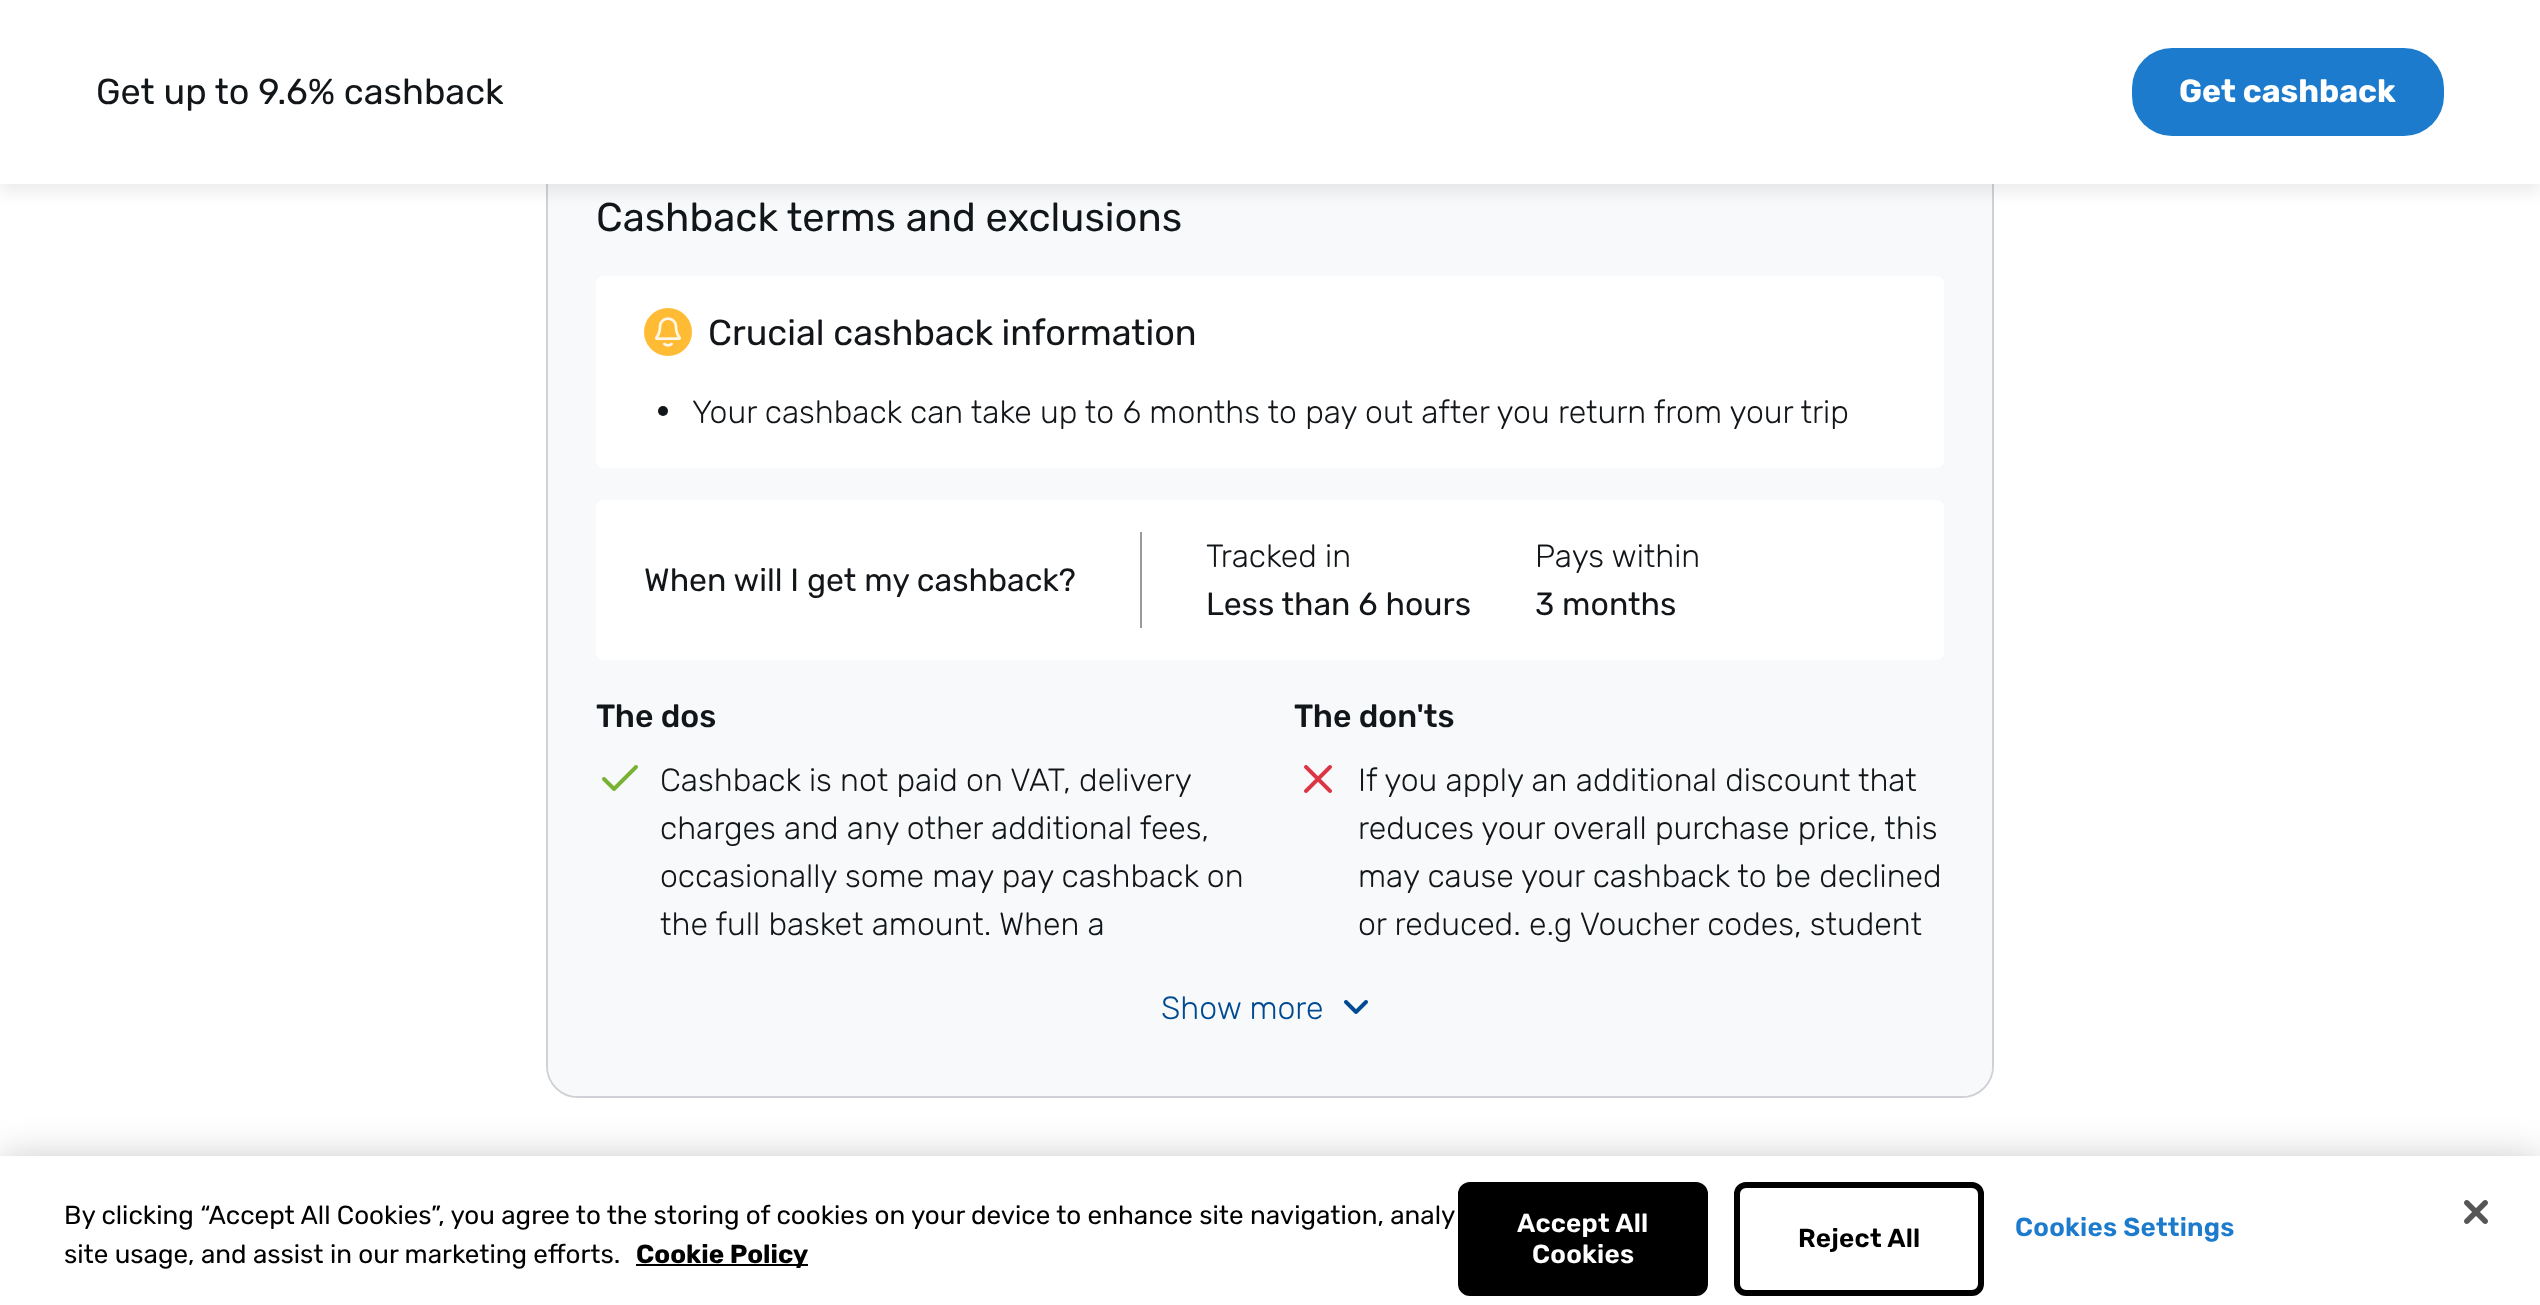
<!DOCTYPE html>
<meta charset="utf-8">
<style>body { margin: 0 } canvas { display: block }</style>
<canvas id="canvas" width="2540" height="1305"></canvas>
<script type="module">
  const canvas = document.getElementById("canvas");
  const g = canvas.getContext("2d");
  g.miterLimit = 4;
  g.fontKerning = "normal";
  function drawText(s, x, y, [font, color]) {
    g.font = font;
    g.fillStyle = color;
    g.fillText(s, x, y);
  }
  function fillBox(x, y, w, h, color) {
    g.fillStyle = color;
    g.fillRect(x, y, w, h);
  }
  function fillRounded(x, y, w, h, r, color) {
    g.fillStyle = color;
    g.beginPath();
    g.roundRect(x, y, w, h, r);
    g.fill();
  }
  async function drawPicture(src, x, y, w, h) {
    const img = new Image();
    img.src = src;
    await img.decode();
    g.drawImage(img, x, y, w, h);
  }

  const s1 = ["36px Rubik", "#121619"];
  const s2 = ["bold 32px Rubik", "#FFFFFF"];
  const s3 = ["40px Rubik", "#121619"];
  const s4 = ["300 32px Rubik", "#121619"];
  const s5 = ["32px Rubik", "#121619"];
  const s6 = ["500 32px Rubik", "#121619"];
  const s7 = ["300 32px Rubik", "#004A92"];
  const s8 = ["26.02px Rubik", "#000000"];
  const s9 = ["bold 26.02px Rubik", "#000000"];
  const s10 = ["600 26.02px Rubik", "#FFFFFF"];
  const s11 = ["600 26.02px Rubik", "#000000"];
  const s12 = ["600 26.02px Rubik", "#1D7BCE"];

  fillBox(0, 0, 2540, 1305, "#FFFFFF");
  g.beginPath();
  g.roundRect(547, 155, 1446, 942, 31);
  g.strokeStyle = "#D0D1D6";
  g.lineWidth = 2;
  g.stroke();
  fillRounded(548, 156, 1444, 940, 30, "#F8F9FA");
  g.fillStyle = "rgba(0, 0, 0, 0.08)";
  g.filter = "blur(8px)";
  g.beginPath();
  g.rect(0, 8, 2540, 184);
  g.fill();
  g.filter = "none";
  fillBox(0, 0, 2540, 184, "#FFFFFF");
  drawText("Get up to 9.6% cashback", 96, 104, s1);
  fillRounded(2132, 48, 312, 88, 40, "#1D7BCE");
  drawText("Get cashback", 2179, 102, s2);
  drawText("Cashback terms and exclusions", 596, 231, s3);
  fillRounded(596, 276, 1348, 192, 8, "#FFFFFF");
  g.fillStyle = "#FFBB33";
  g.beginPath();
  g.arc(668, 332, 24, 0, Math.PI * 2);
  g.fill();
  await drawPicture("pic1.png", 655, 317, 26, 30);
  drawText("Crucial cashback information", 708, 345, s1);
  g.beginPath();
  g.arc(663, 411, 5, 0, Math.PI * 2);
  g.fill();
  drawText("Your cashback can take up to 6 months to pay out after you return from your trip", 692, 423, s4);
  fillRounded(596, 500, 1348, 160, 8, "#FFFFFF");
  drawText("When will I get my cashback?", 644, 591, s5);
  fillBox(1140, 532, 2, 96, "#989A9E");
  drawText("Tracked in", 1206, 567, s4);
  drawText("Less than 6 hours", 1206, 615, s5);
  drawText("Pays within", 1535, 567, s4);
  drawText("3 months", 1535, 615, s5);
  drawText("The dos", 596, 727, s6);
  await drawPicture("pic2.png", 602, 765, 36, 26);
  drawText("Cashback is not paid on VAT, delivery", 660, 791, s4);
  drawText("charges and any other additional fees,", 660, 839, s4);
  drawText("occasionally some may pay cashback on", 660, 887, s4);
  drawText("the full basket amount. When a", 660, 935, s4);
  drawText("The don'ts", 1294, 727, s6);
  await drawPicture("pic3.png", 1304, 765, 28, 28);
  drawText("If you apply an additional discount that", 1358, 791, s4);
  drawText("reduces your overall purchase price, this", 1358, 839, s4);
  drawText("may cause your cashback to be declined", 1358, 887, s4);
  drawText("or reduced. e.g Voucher codes, student", 1358, 935, s4);
  drawText("Show more", 1161, 1019, s7);
  await drawPicture("pic4.png", 1344, 1000, 24, 14);
  g.fillStyle = "rgba(0, 0, 0, 0.2)";
  g.filter = "blur(18px)";
  g.beginPath();
  g.rect(0, 1156, 2540, 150);
  g.fill();
  g.filter = "none";
  fillBox(0, 1156, 2540, 149, "#FFFFFF");
  drawText("By clicking “Accept All Cookies”, you agree to the storing of cookies on your device to enhance site navigation, analy", 64, 1224, s8);
  drawText("site usage, and assist in our marketing efforts.", 64, 1263, s8);
  fillBox(636, 1264, 172, 2, "#000000");
  drawText("Cookie Policy", 636, 1263, s9);
  g.beginPath();
  g.roundRect(1459, 1183, 248, 112, 11);
  g.fill();
  g.strokeStyle = "#000000";
  g.stroke();
  g.letterSpacing = "0.25px";
  drawText("Accept All", 1517, 1232, s10);
  drawText("Cookies", 1532, 1263, s10);
  g.beginPath();
  g.roundRect(1737, 1185, 244, 108, 9);
  g.lineWidth = 6;
  g.stroke();
  drawText("Reject All", 1798, 1247, s11);
  drawText("Cookies Settings", 2015, 1236, s12);
  await drawPicture("pic5.png", 2464, 1200, 24, 24);
</script>
